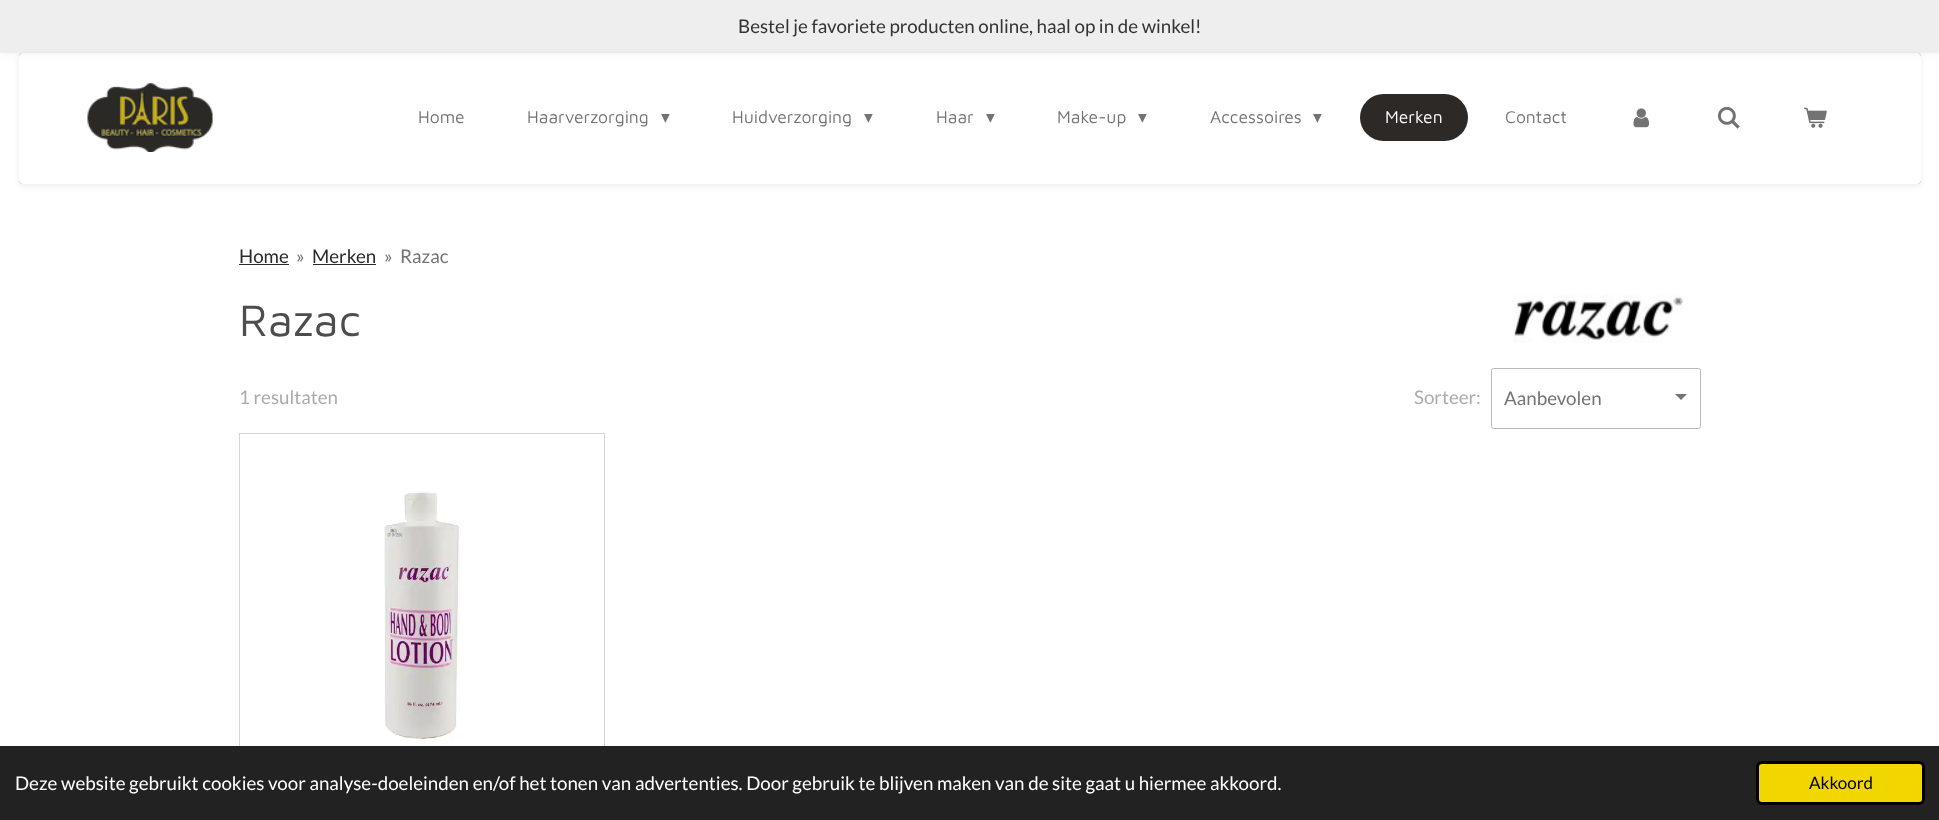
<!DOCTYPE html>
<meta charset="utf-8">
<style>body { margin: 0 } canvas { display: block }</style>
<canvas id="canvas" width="1939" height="820"></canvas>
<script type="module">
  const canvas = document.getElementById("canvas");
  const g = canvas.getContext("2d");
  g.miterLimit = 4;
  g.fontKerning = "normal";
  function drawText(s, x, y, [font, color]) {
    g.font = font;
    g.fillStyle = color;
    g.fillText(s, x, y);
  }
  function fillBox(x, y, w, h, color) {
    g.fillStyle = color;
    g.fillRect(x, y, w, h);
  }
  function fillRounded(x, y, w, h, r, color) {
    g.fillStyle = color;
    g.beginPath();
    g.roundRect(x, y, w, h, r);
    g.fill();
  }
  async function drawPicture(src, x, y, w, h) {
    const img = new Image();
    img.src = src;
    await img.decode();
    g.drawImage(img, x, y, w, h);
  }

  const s1 = ["18.75px Lato", "#333333"];
  const s2 = ["17.5px Maven Pro", "#737373"];
  const s3 = ["17.5px DejaVu Sans", "#737373"];
  const s4 = ["17.5px Maven Pro", "#FFFFFF"];
  const s5 = ["18.75px Lato", "#2C2926"];
  const s6 = ["18.75px Lato", "#737373"];
  const s7 = ["45.5px Maven Pro", "#4D4D4D"];
  const s8 = ["18.75px Lato", "#ABABAB"];
  const s9 = ["18.75px Lato", "#FFFFFF"];
  const s10 = ["17px Lato", "#000000"];

  fillBox(0, 0, 1939, 820, "#FFFFFF");
  g.fillStyle = "rgba(0, 0, 0, 0.1)";
  g.filter = "blur(6px)";
  g.beginPath();
  g.rect(0, -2, 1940, 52);
  g.fill();
  g.filter = "none";
  fillBox(0, 0, 1939, 53, "#EEEEEE");
  drawText("Bestel je favoriete producten online, haal op in de winkel!", 738, 33, s1);
  g.save();
  g.beginPath();
  g.moveTo(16, 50);
  g.lineTo(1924, 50);
  g.lineTo(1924, 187);
  g.lineTo(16, 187);
  g.closePath();
  g.moveTo(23, 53);
  g.lineTo(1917, 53);
  g.bezierCurveTo(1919, 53, 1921, 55, 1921, 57);
  g.lineTo(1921, 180);
  g.bezierCurveTo(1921, 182, 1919, 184, 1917, 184);
  g.lineTo(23, 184);
  g.bezierCurveTo(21, 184, 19, 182, 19, 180);
  g.lineTo(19, 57);
  g.bezierCurveTo(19, 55, 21, 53, 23, 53);
  g.closePath();
  g.clip("evenodd");
  g.fillStyle = "rgba(0, 0, 0, 0.3)";
  g.filter = "blur(0.5px)";
  g.beginPath();
  g.roundRect(19, 53, 1902, 131, 4);
  g.fill();
  g.filter = "none";
  g.restore();
  g.save();
  g.beginPath();
  g.moveTo(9, 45);
  g.lineTo(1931, 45);
  g.lineTo(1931, 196);
  g.lineTo(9, 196);
  g.closePath();
  g.moveTo(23, 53);
  g.lineTo(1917, 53);
  g.bezierCurveTo(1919, 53, 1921, 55, 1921, 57);
  g.lineTo(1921, 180);
  g.bezierCurveTo(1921, 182, 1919, 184, 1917, 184);
  g.lineTo(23, 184);
  g.bezierCurveTo(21, 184, 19, 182, 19, 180);
  g.lineTo(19, 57);
  g.bezierCurveTo(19, 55, 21, 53, 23, 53);
  g.closePath();
  g.clip("evenodd");
  g.fillStyle = "rgba(0, 0, 0, 0.07)";
  g.filter = "blur(3px)";
  g.beginPath();
  g.roundRect(19, 55, 1902, 131, 4);
  g.fill();
  g.filter = "none";
  g.restore();
  await drawPicture("pic1.png", 87, 83, 126, 69);
  drawText("Home", 418, 123, s2);
  drawText("Haarverzorging", 527, 123, s2);
  drawText("▾", 661, 123, s3);
  drawText("Huidverzorging", 732, 123, s2);
  drawText("▾", 864, 123, s3);
  drawText("Haar", 936, 123, s2);
  drawText("▾", 986, 123, s3);
  drawText("Make-up", 1057, 123, s2);
  drawText("▾", 1138, 123, s3);
  drawText("Accessoires", 1210, 123, s2);
  drawText("▾", 1313, 123, s3);
  fillRounded(1360, 94, 108, 47, 23.5, "#2C2926");
  drawText("Merken", 1385, 123, s4);
  drawText("Contact", 1505, 123, s2);
  await drawPicture("pic2.png", 1633, 108, 17, 20);
  await drawPicture("pic3.png", 1717, 106, 23, 23);
  await drawPicture("pic4.png", 1804, 107, 23, 21);
  drawText("Home", 239, 263, s5);
  fillBox(239, 264, 50, 1, "#2C2926");
  drawText("»", 296, 263, s6);
  drawText("Merken", 312, 263, s5);
  fillBox(313, 264, 63, 1, "#2C2926");
  drawText("»", 384, 263, s6);
  drawText("Razac", 400, 263, s6);
  drawText("Razac", 239, 336, s7);
  await drawPicture("pic5.png", 1513, 294, 170, 49);
  drawText("1 resultaten", 239, 404, s8);
  drawText("Sorteer:", 1414, 404, s8);
  g.fillStyle = "#737373";
  g.beginPath();
  g.moveTo(1681, 400);
  g.lineTo(1675, 394);
  g.lineTo(1687, 394);
  g.closePath();
  g.fill();
  g.beginPath();
  g.roundRect(1491.5, 368.5, 209, 60, 2);
  g.strokeStyle = "#B9B9B9";
  g.stroke();
  drawText("Aanbevolen", 1504, 405, s6);
  g.strokeStyle = "#D5D5D5";
  g.strokeRect(239.5, 433.5, 365, 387);
  await drawPicture("pic6.png", 383, 491, 78, 250);
  fillBox(0, 746, 1939, 74, "#222222");
  drawText("Deze website gebruikt cookies voor analyse-doeleinden en/of het tonen van advertenties. Door gebruik te blijven maken van de site gaat u hiermee akkoord.", 15, 790, s9);
  g.fillStyle = "#F1D600";
  g.beginPath();
  g.roundRect(1757.5, 762.5, 166, 41, 4.5);
  g.fill();
  g.strokeStyle = "#000000";
  g.lineWidth = 3;
  g.stroke();
  drawText("Akkoord", 1809, 789, s10);
</script>
